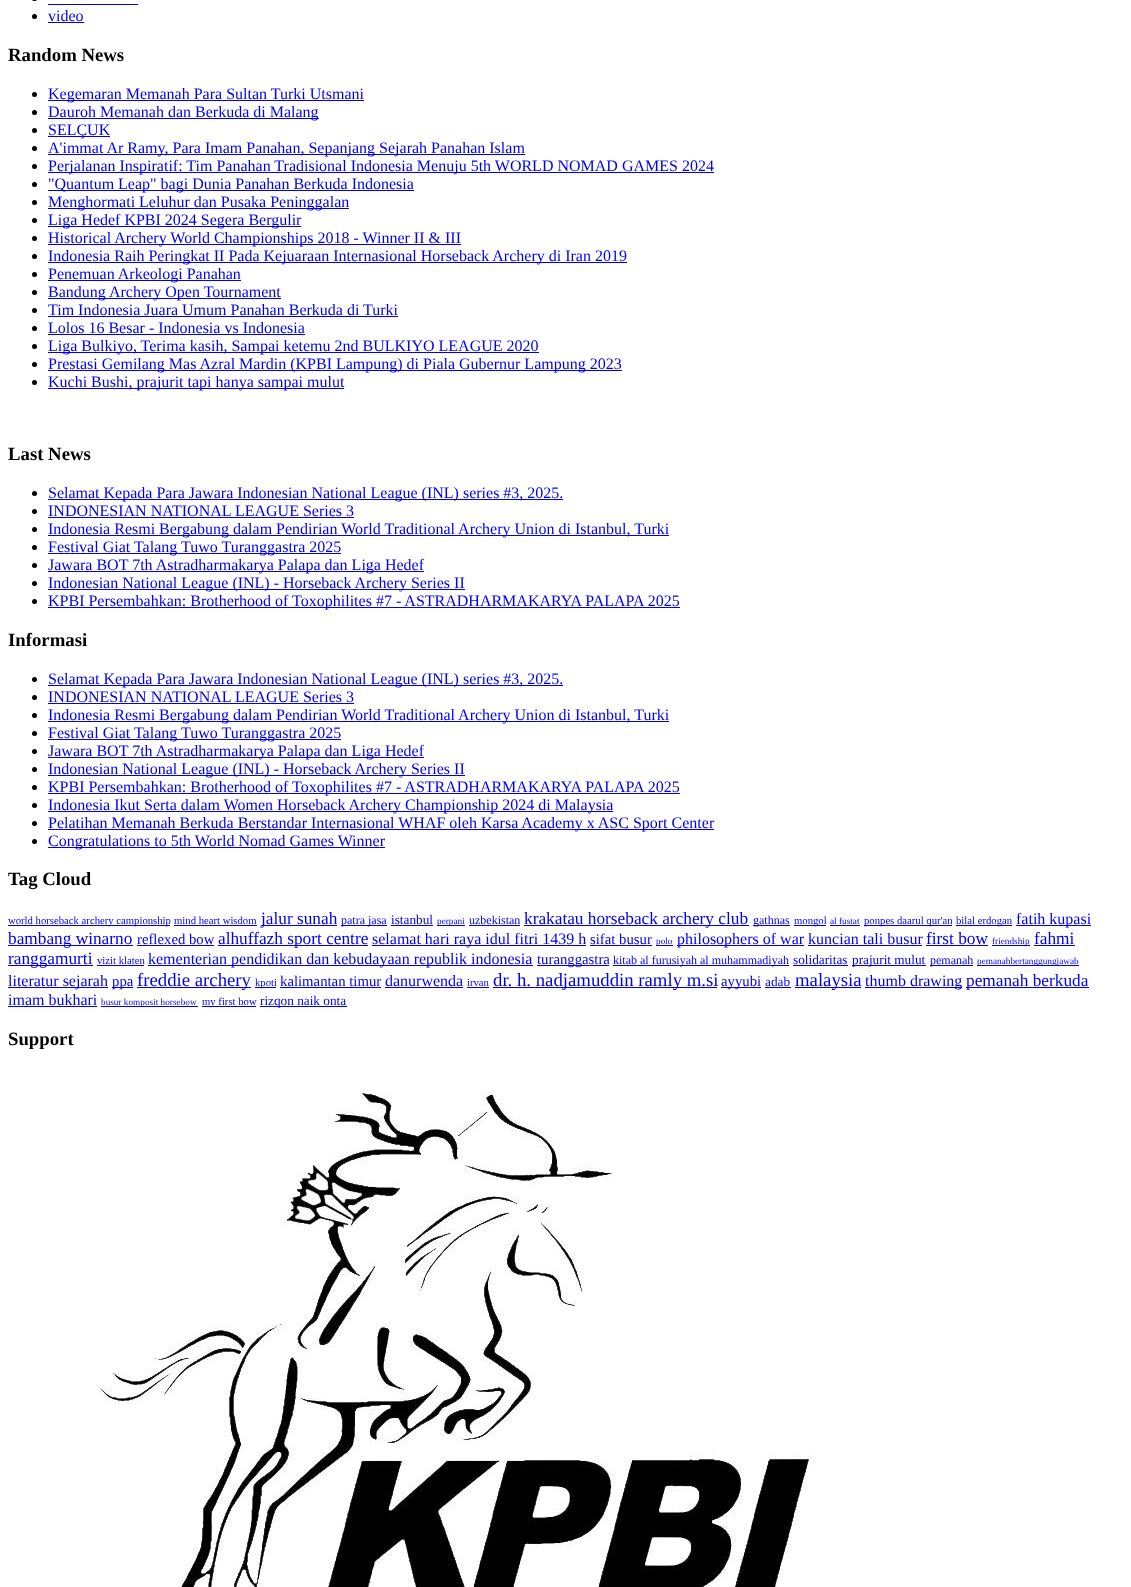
<!DOCTYPE html>
<meta charset="utf-8">
<style>body { margin: 0 } canvas { display: block }</style>
<canvas id="canvas" width="1131" height="1587"></canvas>
<script type="module">
  const canvas = document.getElementById("canvas");
  const g = canvas.getContext("2d");
  g.miterLimit = 4;
  g.fontKerning = "normal";
  function drawText(s, x, y, [font, color]) {
    g.font = font;
    g.fillStyle = color;
    g.fillText(s, x, y);
  }
  function fillBox(x, y, w, h, color) {
    g.fillStyle = color;
    g.fillRect(x, y, w, h);
  }
  function fillRounded(x, y, w, h, r, color) {
    g.fillStyle = color;
    g.beginPath();
    g.roundRect(x, y, w, h, r);
    g.fill();
  }
  async function drawPicture(src, x, y, w, h) {
    const img = new Image();
    img.src = src;
    await img.decode();
    g.drawImage(img, x, y, w, h);
  }

  const s1 = ["16px Liberation Serif", "#0000EE"];
  const s2 = ["bold 18.75px Liberation Serif", "#000000"];
  const s3 = ["10.7px Liberation Serif", "#0000EE"];
  const s4 = ["17.3px Liberation Serif", "#0000EE"];
  const s5 = ["12px Liberation Serif", "#0000EE"];
  const s6 = ["13.25px Liberation Serif", "#0000EE"];
  const s7 = ["9.25px Liberation Serif", "#0000EE"];
  const s8 = ["14.75px Liberation Serif", "#0000EE"];
  const s9 = ["18.75px Liberation Serif", "#0000EE"];

  fillBox(0, 0, 1131, 1587, "#FFFFFF");
  fillRounded(32, -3, 5, 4, 2.5, "#000000");
  fillBox(48, 4, 90, 1, "#0000EE");
  g.fillStyle = "#000000";
  g.beginPath();
  g.arc(34.5, 16.5, 2.5, 0, Math.PI * 2);
  g.fill();
  drawText("video", 48, 21, s1);
  fillBox(48, 22, 36, 1, "#0000EE");
  drawText("Random News", 8, 61, s2);
  g.beginPath();
  g.arc(34.5, 94.5, 2.5, 0, Math.PI * 2);
  g.fill();
  fillBox(48, 100, 316, 1, "#0000EE");
  drawText("Kegemaran Memanah Para Sultan Turki Utsmani", 48, 99, s1);
  g.fillStyle = "#000000";
  g.beginPath();
  g.arc(34.5, 112.5, 2.5, 0, Math.PI * 2);
  g.fill();
  fillBox(48, 118, 271, 1, "#0000EE");
  drawText("Dauroh Memanah dan Berkuda di Malang", 48, 117, s1);
  g.fillStyle = "#000000";
  g.beginPath();
  g.arc(34.5, 130.5, 2.5, 0, Math.PI * 2);
  g.fill();
  fillBox(48, 136, 62, 1, "#0000EE");
  drawText("SELÇUK", 48, 135, s1);
  g.fillStyle = "#000000";
  g.beginPath();
  g.arc(34.5, 148.5, 2.5, 0, Math.PI * 2);
  g.fill();
  fillBox(48, 154, 477, 1, "#0000EE");
  drawText("A'immat Ar Ramy, Para Imam Panahan, Sepanjang Sejarah Panahan Islam", 48, 153, s1);
  g.fillStyle = "#000000";
  g.beginPath();
  g.arc(34.5, 166.5, 2.5, 0, Math.PI * 2);
  g.fill();
  fillBox(48, 172, 666, 1, "#0000EE");
  drawText("Perjalanan Inspiratif: Tim Panahan Tradisional Indonesia Menuju 5th WORLD NOMAD GAMES 2024", 48, 171, s1);
  g.fillStyle = "#000000";
  g.beginPath();
  g.arc(34.5, 184.5, 2.5, 0, Math.PI * 2);
  g.fill();
  fillBox(48, 190, 366, 1, "#0000EE");
  drawText("\"Quantum Leap\" bagi Dunia Panahan Berkuda Indonesia", 48, 189, s1);
  g.fillStyle = "#000000";
  g.beginPath();
  g.arc(34.5, 202.5, 2.5, 0, Math.PI * 2);
  g.fill();
  fillBox(48, 208, 301, 1, "#0000EE");
  drawText("Menghormati Leluhur dan Pusaka Peninggalan", 48, 207, s1);
  g.fillStyle = "#000000";
  g.beginPath();
  g.arc(34.5, 220.5, 2.5, 0, Math.PI * 2);
  g.fill();
  fillBox(48, 226, 253, 1, "#0000EE");
  drawText("Liga Hedef KPBI 2024 Segera Bergulir", 48, 225, s1);
  g.fillStyle = "#000000";
  g.beginPath();
  g.arc(34.5, 238.5, 2.5, 0, Math.PI * 2);
  g.fill();
  fillBox(48, 244, 413, 1, "#0000EE");
  drawText("Historical Archery World Championships 2018 - Winner II & III", 48, 243, s1);
  g.fillStyle = "#000000";
  g.beginPath();
  g.arc(34.5, 256.5, 2.5, 0, Math.PI * 2);
  g.fill();
  fillBox(48, 262, 579, 1, "#0000EE");
  drawText("Indonesia Raih Peringkat II Pada Kejuaraan Internasional Horseback Archery di Iran 2019", 48, 261, s1);
  g.fillStyle = "#000000";
  g.beginPath();
  g.arc(34.5, 274.5, 2.5, 0, Math.PI * 2);
  g.fill();
  fillBox(48, 280, 193, 1, "#0000EE");
  drawText("Penemuan Arkeologi Panahan", 48, 279, s1);
  g.fillStyle = "#000000";
  g.beginPath();
  g.arc(34.5, 292.5, 2.5, 0, Math.PI * 2);
  g.fill();
  fillBox(48, 298, 233, 1, "#0000EE");
  drawText("Bandung Archery Open Tournament", 48, 297, s1);
  g.fillStyle = "#000000";
  g.beginPath();
  g.arc(34.5, 310.5, 2.5, 0, Math.PI * 2);
  g.fill();
  drawText("Tim Indonesia Juara Umum Panahan Berkuda di Turki", 48, 315, s1);
  fillBox(48, 316, 350, 1, "#0000EE");
  g.fillStyle = "#000000";
  g.beginPath();
  g.arc(34.5, 328.5, 2.5, 0, Math.PI * 2);
  g.fill();
  drawText("Lolos 16 Besar - Indonesia vs Indonesia", 48, 333, s1);
  fillBox(48, 334, 257, 1, "#0000EE");
  g.fillStyle = "#000000";
  g.beginPath();
  g.arc(34.5, 346.5, 2.5, 0, Math.PI * 2);
  g.fill();
  fillBox(48, 352, 491, 1, "#0000EE");
  drawText("Liga Bulkiyo, Terima kasih, Sampai ketemu 2nd BULKIYO LEAGUE 2020", 48, 351, s1);
  g.fillStyle = "#000000";
  g.beginPath();
  g.arc(34.5, 364.5, 2.5, 0, Math.PI * 2);
  g.fill();
  fillBox(48, 370, 574, 1, "#0000EE");
  drawText("Prestasi Gemilang Mas Azral Mardin (KPBI Lampung) di Piala Gubernur Lampung 2023", 48, 369, s1);
  g.fillStyle = "#000000";
  g.beginPath();
  g.arc(34.5, 382.5, 2.5, 0, Math.PI * 2);
  g.fill();
  fillBox(48, 388, 296, 1, "#0000EE");
  drawText("Kuchi Bushi, prajurit tapi hanya sampai mulut", 48, 387, s1);
  drawText("Last News", 8, 460, s2);
  g.beginPath();
  g.arc(34.5, 493.5, 2.5, 0, Math.PI * 2);
  g.fill();
  fillBox(48, 499, 515, 1, "#0000EE");
  drawText("Selamat Kepada Para Jawara Indonesian National League (INL) series #3, 2025.", 48, 498, s1);
  g.fillStyle = "#000000";
  g.beginPath();
  g.arc(34.5, 511.5, 2.5, 0, Math.PI * 2);
  g.fill();
  drawText("INDONESIAN NATIONAL LEAGUE Series 3", 48, 516, s1);
  fillBox(48, 517, 306, 1, "#0000EE");
  g.fillStyle = "#000000";
  g.beginPath();
  g.arc(34.5, 529.5, 2.5, 0, Math.PI * 2);
  g.fill();
  fillBox(48, 535, 621, 1, "#0000EE");
  drawText("Indonesia Resmi Bergabung dalam Pendirian World Traditional Archery Union di Istanbul, Turki", 48, 534, s1);
  g.fillStyle = "#000000";
  g.beginPath();
  g.arc(34.5, 547.5, 2.5, 0, Math.PI * 2);
  g.fill();
  fillBox(48, 553, 293, 1, "#0000EE");
  drawText("Festival Giat Talang Tuwo Turanggastra 2025", 48, 552, s1);
  g.fillStyle = "#000000";
  g.beginPath();
  g.arc(34.5, 565.5, 2.5, 0, Math.PI * 2);
  g.fill();
  fillBox(48, 571, 376, 1, "#0000EE");
  drawText("Jawara BOT 7th Astradharmakarya Palapa dan Liga Hedef", 48, 570, s1);
  g.fillStyle = "#000000";
  g.beginPath();
  g.arc(34.5, 583.5, 2.5, 0, Math.PI * 2);
  g.fill();
  fillBox(48, 589, 417, 1, "#0000EE");
  drawText("Indonesian National League (INL) - Horseback Archery Series II", 48, 588, s1);
  g.fillStyle = "#000000";
  g.beginPath();
  g.arc(34.5, 601.5, 2.5, 0, Math.PI * 2);
  g.fill();
  fillBox(48, 607, 632, 1, "#0000EE");
  drawText("KPBI Persembahkan: Brotherhood of Toxophilites #7 - ASTRADHARMAKARYA PALAPA 2025", 48, 606, s1);
  drawText("Informasi", 8, 646, s2);
  g.beginPath();
  g.arc(34.5, 679.5, 2.5, 0, Math.PI * 2);
  g.fill();
  fillBox(48, 685, 515, 1, "#0000EE");
  drawText("Selamat Kepada Para Jawara Indonesian National League (INL) series #3, 2025.", 48, 684, s1);
  g.fillStyle = "#000000";
  g.beginPath();
  g.arc(34.5, 697.5, 2.5, 0, Math.PI * 2);
  g.fill();
  drawText("INDONESIAN NATIONAL LEAGUE Series 3", 48, 702, s1);
  fillBox(48, 703, 306, 1, "#0000EE");
  g.fillStyle = "#000000";
  g.beginPath();
  g.arc(34.5, 715.5, 2.5, 0, Math.PI * 2);
  g.fill();
  fillBox(48, 721, 621, 1, "#0000EE");
  drawText("Indonesia Resmi Bergabung dalam Pendirian World Traditional Archery Union di Istanbul, Turki", 48, 720, s1);
  g.fillStyle = "#000000";
  g.beginPath();
  g.arc(34.5, 733.5, 2.5, 0, Math.PI * 2);
  g.fill();
  fillBox(48, 739, 293, 1, "#0000EE");
  drawText("Festival Giat Talang Tuwo Turanggastra 2025", 48, 738, s1);
  g.fillStyle = "#000000";
  g.beginPath();
  g.arc(34.5, 751.5, 2.5, 0, Math.PI * 2);
  g.fill();
  fillBox(48, 757, 376, 1, "#0000EE");
  drawText("Jawara BOT 7th Astradharmakarya Palapa dan Liga Hedef", 48, 756, s1);
  g.fillStyle = "#000000";
  g.beginPath();
  g.arc(34.5, 769.5, 2.5, 0, Math.PI * 2);
  g.fill();
  fillBox(48, 775, 417, 1, "#0000EE");
  drawText("Indonesian National League (INL) - Horseback Archery Series II", 48, 774, s1);
  g.fillStyle = "#000000";
  g.beginPath();
  g.arc(34.5, 787.5, 2.5, 0, Math.PI * 2);
  g.fill();
  fillBox(48, 793, 632, 1, "#0000EE");
  drawText("KPBI Persembahkan: Brotherhood of Toxophilites #7 - ASTRADHARMAKARYA PALAPA 2025", 48, 792, s1);
  g.fillStyle = "#000000";
  g.beginPath();
  g.arc(34.5, 805.5, 2.5, 0, Math.PI * 2);
  g.fill();
  fillBox(48, 811, 565, 1, "#0000EE");
  drawText("Indonesia Ikut Serta dalam Women Horseback Archery Championship 2024 di Malaysia", 48, 810, s1);
  g.fillStyle = "#000000";
  g.beginPath();
  g.arc(34.5, 823.5, 2.5, 0, Math.PI * 2);
  g.fill();
  fillBox(48, 829, 666, 1, "#0000EE");
  drawText("Pelatihan Memanah Berkuda Berstandar Internasional WHAF oleh Karsa Academy x ASC Sport Center", 48, 828, s1);
  g.fillStyle = "#000000";
  g.beginPath();
  g.arc(34.5, 841.5, 2.5, 0, Math.PI * 2);
  g.fill();
  fillBox(48, 847, 337, 1, "#0000EE");
  drawText("Congratulations to 5th World Nomad Games Winner", 48, 846, s1);
  drawText("Tag Cloud", 8, 885, s2);
  fillBox(8, 925, 162, 1, "#0000EE");
  drawText("world horseback archery campionship", 8, 924, s3);
  drawText("mind heart wisdom", 174, 924, s3);
  fillBox(174, 925, 83, 1, "#0000EE");
  fillBox(261, 925, 76, 1, "#0000EE");
  drawText("jalur sunah", 261, 924, s4);
  fillBox(341, 925, 46, 1, "#0000EE");
  drawText("patra jasa", 341, 924, s5);
  drawText("istanbul", 391, 924, s6);
  fillBox(391, 925, 42, 1, "#0000EE");
  fillBox(437, 925, 28, 1, "#0000EE");
  drawText("perpani", 437, 924, s7);
  drawText("uzbekistan", 469, 924, s5);
  fillBox(469, 925, 51, 1, "#0000EE");
  fillBox(524, 925, 225, 1, "#0000EE");
  drawText("krakatau horseback archery club", 524, 924, s4);
  fillBox(753, 925, 37, 1, "#0000EE");
  drawText("gathnas", 753, 924, s5);
  fillBox(794, 925, 32, 1, "#0000EE");
  drawText("mongol", 794, 924, s3);
  drawText("al fustat", 830, 924, s7);
  fillBox(830, 925, 30, 1, "#0000EE");
  fillBox(864, 925, 88, 1, "#0000EE");
  drawText("ponpes daarul qur'an", 864, 924, s3);
  fillBox(956, 925, 56, 1, "#0000EE");
  drawText("bilal erdogan", 956, 924, s3);
  fillBox(1016, 925, 75, 1, "#0000EE");
  drawText("fatih kupasi", 1016, 924, s1);
  fillBox(8, 945, 125, 1, "#0000EE");
  drawText("bambang winarno", 8, 944, s4);
  drawText("reflexed bow", 137, 944, s8);
  fillBox(137, 945, 77, 1, "#0000EE");
  fillBox(218, 945, 150, 1, "#0000EE");
  drawText("alhuffazh sport centre", 218, 944, s4);
  fillBox(372, 945, 214, 1, "#0000EE");
  drawText("selamat hari raya idul fitri 1439 h", 372, 944, s1);
  drawText("sifat busur", 590, 944, s8);
  fillBox(590, 945, 62, 1, "#0000EE");
  fillBox(656, 945, 17, 1, "#0000EE");
  drawText("polo", 656, 944, s7);
  fillBox(677, 945, 127, 1, "#0000EE");
  drawText("philosophers of war kuncian tali busur", 677, 944, s1);
  drawText("first bow", 926, 944, s4);
  fillBox(926, 945, 62, 1, "#0000EE");
  fillBox(992, 945, 38, 1, "#0000EE");
  drawText("friendship", 992, 944, s7);
  drawText("fahmi", 1034, 944, s4);
  fillBox(1034, 945, 41, 1, "#0000EE");
  fillBox(808, 945, 114, 1, "#0000EE");
  fillBox(8, 965, 85, 1, "#0000EE");
  drawText("ranggamurti", 8, 964, s4);
  drawText("vizit klaten", 97, 964, s3);
  fillBox(97, 965, 47, 1, "#0000EE");
  fillBox(148, 965, 385, 1, "#0000EE");
  drawText("kementerian pendidikan dan kebudayaan republik indonesia", 148, 964, s1);
  fillBox(537, 965, 72, 1, "#0000EE");
  drawText("turanggastra", 537, 964, s8);
  fillBox(613, 965, 176, 1, "#0000EE");
  drawText("kitab al furusiyah al muhammadiyah", 613, 964, s5);
  drawText("solidaritas", 793, 964, s6);
  fillBox(793, 965, 55, 1, "#0000EE");
  fillBox(852, 965, 74, 1, "#0000EE");
  drawText("prajurit mulut", 852, 964, s6);
  fillBox(930, 965, 43, 1, "#0000EE");
  drawText("pemanah", 930, 964, s5);
  fillBox(977, 965, 102, 1, "#0000EE");
  drawText("pemanahbertanggungjawab", 977, 964, s7);
  fillBox(8, 987, 100, 1, "#0000EE");
  drawText("literatur sejarah", 8, 986, s1);
  fillBox(112, 987, 21, 1, "#0000EE");
  drawText("ppa", 112, 986, s8);
  fillBox(137, 987, 114, 1, "#0000EE");
  drawText("freddie archery", 137, 986, s9);
  fillBox(255, 987, 21, 1, "#0000EE");
  drawText("kpoti", 255, 986, s3);
  drawText("kalimantan timur", 280, 986, s8);
  fillBox(280, 987, 101, 1, "#0000EE");
  drawText("danurwenda", 385, 986, s1);
  fillBox(385, 987, 78, 1, "#0000EE");
  drawText("irvan", 467, 986, s3);
  fillBox(467, 987, 22, 1, "#0000EE");
  fillBox(493, 987, 224, 1, "#0000EE");
  drawText("dr. h. nadjamuddin ramly m.si", 493, 986, s9);
  fillBox(721, 987, 40, 1, "#0000EE");
  drawText("ayyubi", 721, 986, s8);
  drawText("adab", 765, 986, s6);
  fillBox(765, 987, 26, 1, "#0000EE");
  fillBox(795, 987, 66, 1, "#0000EE");
  drawText("malaysia", 795, 986, s9);
  fillBox(865, 987, 97, 1, "#0000EE");
  drawText("thumb drawing", 865, 986, s1);
  fillBox(966, 987, 123, 1, "#0000EE");
  drawText("pemanah berkuda", 966, 986, s4);
  drawText("imam bukhari", 8, 1005, s1);
  fillBox(8, 1006, 89, 1, "#0000EE");
  fillBox(101, 1006, 97, 1, "#0000EE");
  drawText("busur komposit horsebow", 101, 1005, s7);
  fillBox(202, 1006, 54, 1, "#0000EE");
  drawText("my first bow", 202, 1005, s3);
  fillBox(260, 1006, 87, 1, "#0000EE");
  drawText("rizqon naik onta", 260, 1005, s6);
  drawText("Support", 8, 1045, s2);
  await drawPicture("pic1.png", 96, 1092, 720, 495);
</script>
